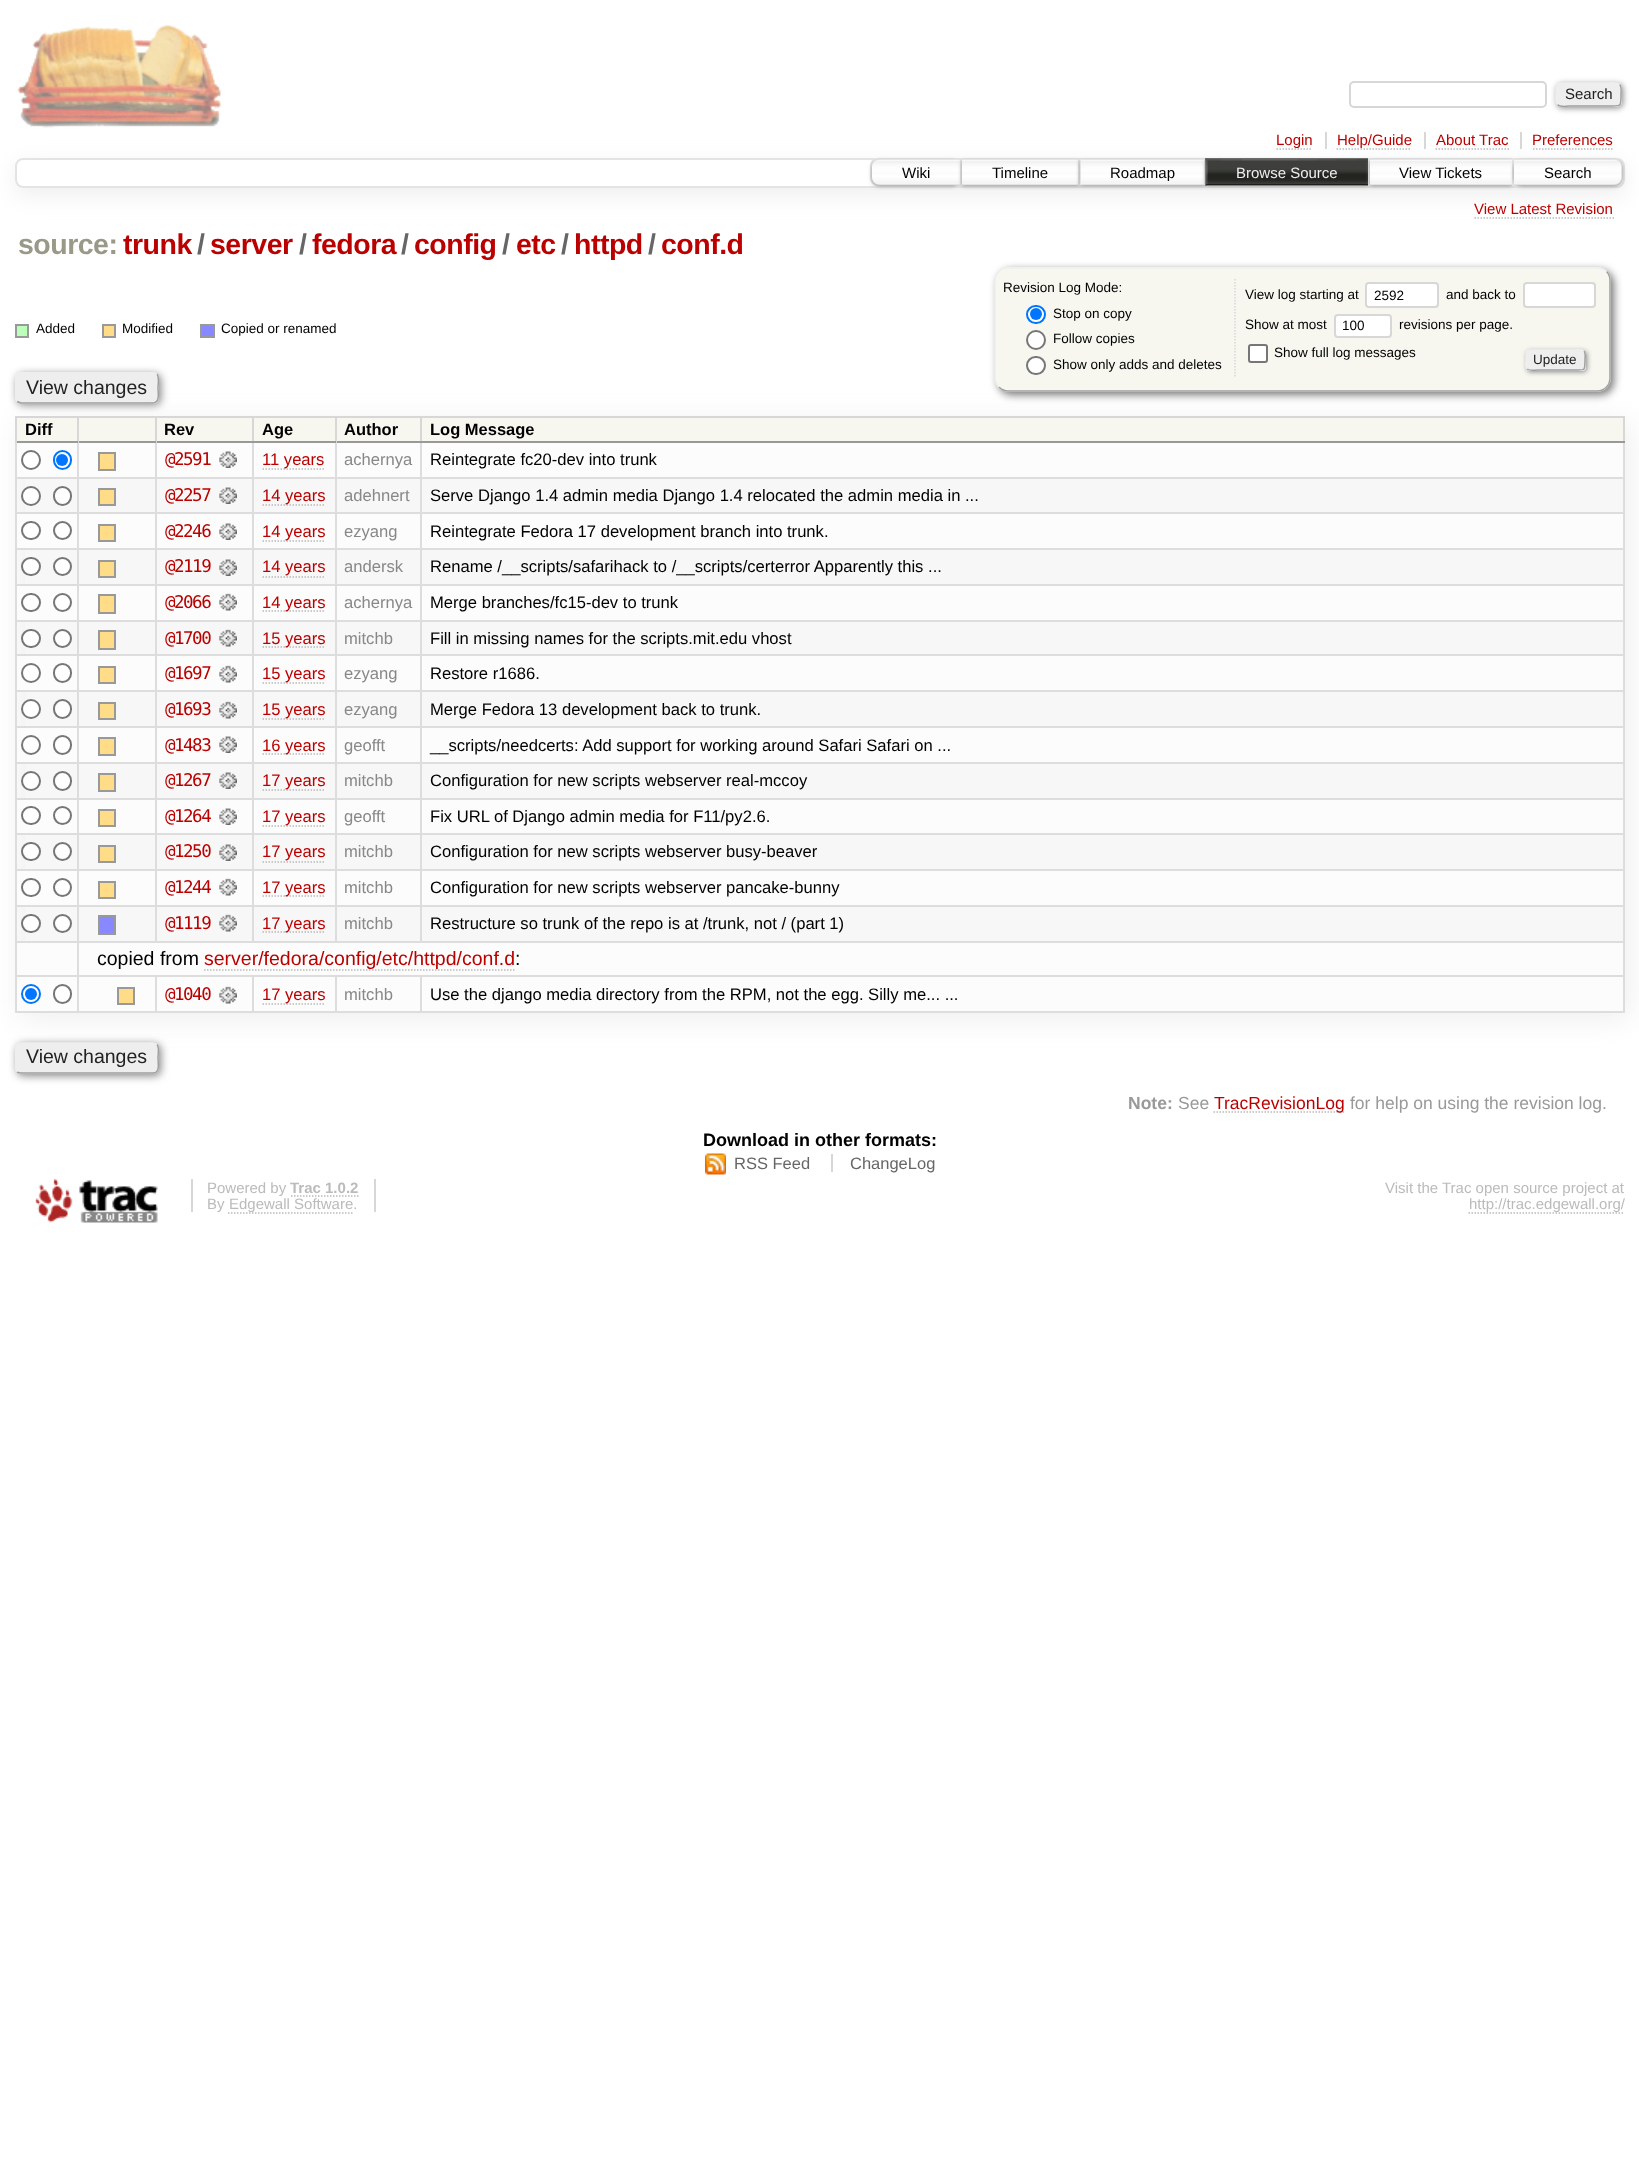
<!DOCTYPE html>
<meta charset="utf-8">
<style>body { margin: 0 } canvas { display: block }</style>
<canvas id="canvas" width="1639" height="2166"></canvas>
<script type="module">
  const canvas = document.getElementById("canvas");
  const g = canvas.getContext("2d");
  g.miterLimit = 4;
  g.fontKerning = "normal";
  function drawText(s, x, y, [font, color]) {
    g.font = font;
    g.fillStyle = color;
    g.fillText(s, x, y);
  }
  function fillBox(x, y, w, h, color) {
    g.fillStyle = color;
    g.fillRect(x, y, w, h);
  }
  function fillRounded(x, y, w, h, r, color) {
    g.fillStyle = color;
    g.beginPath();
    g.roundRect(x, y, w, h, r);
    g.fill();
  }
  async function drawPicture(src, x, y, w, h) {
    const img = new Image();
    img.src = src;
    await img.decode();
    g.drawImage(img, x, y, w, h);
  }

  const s1 = ["15px Liberation Sans", "#222222"];
  const s2 = ["15px Liberation Sans", "#BB0000"];
  const s3 = ["15px Liberation Sans", "#000000"];
  const s4 = ["15px Liberation Sans", "#EEEEEE"];
  const s5 = ["bold 28.5px Liberation Sans", "#999988"];
  const s6 = ["bold 28.5px Liberation Sans", "#BB0000"];
  const s7 = ["bold 28.5px Liberation Sans", "#666666"];
  const s8 = ["13.5px Liberation Sans", "#000000"];
  const s9 = ["13.5px Liberation Sans", "#222222"];
  const s10 = ["19.5px Liberation Sans", "#222222"];
  const s11 = ["bold 16.5px Liberation Sans", "#000000"];
  const s12 = ["17.5px DejaVu Sans Mono", "#BB0000"];
  const s13 = ["16.6px Liberation Sans", "#BB0000"];
  const s14 = ["16.6px Liberation Sans", "#888888"];
  const s15 = ["16.6px Liberation Sans", "#000000"];
  const s16 = ["19.5px Liberation Sans", "#000000"];
  const s17 = ["19.5px Liberation Sans", "#BB0000"];
  const s18 = ["bold 17.5px Liberation Sans", "#999999"];
  const s19 = ["17.5px Liberation Sans", "#999999"];
  const s20 = ["17.5px Liberation Sans", "#BB0000"];
  const s21 = ["bold 18px Liberation Sans", "#000000"];
  const s22 = ["16.5px Liberation Sans", "#666666"];
  const s23 = ["15px Liberation Sans", "#BBBBBB"];
  const s24 = ["bold 15px Liberation Sans", "#BBBBBB"];

  fillBox(0, 0, 1639, 2166, "#FFFFFF");
  await drawPicture("pic1.png", 17, 25, 204, 103);
  g.beginPath();
  g.roundRect(1350, 82, 196, 25, 4);
  g.strokeStyle = "#D7D7D7";
  g.lineWidth = 2;
  g.stroke();
  g.fillStyle = "#888888";
  g.filter = "blur(3px)";
  g.beginPath();
  g.roundRect(1557, 84, 66, 24, 5);
  g.fill();
  g.filter = "none";
  fillRounded(1556, 83, 66, 24, 5, "#EEEEEE");
  g.beginPath();
  g.moveTo(1619.5, 84.5);
  g.bezierCurveTo(1622, 86.5, 1621, 91.5, 1621, 94.5);
  g.bezierCurveTo(1621, 107.5, 1621.5, 106, 1607.5, 106);
  g.lineTo(1569.5, 106);
  g.bezierCurveTo(1569, 106, 1560, 107.5, 1557.5, 104.5);
  g.strokeStyle = "#9F9F9F";
  g.lineWidth = 1.5;
  g.stroke();
  g.beginPath();
  g.moveTo(1557.5, 104.5);
  g.bezierCurveTo(1555, 102.5, 1556, 97.5, 1556, 94.5);
  g.bezierCurveTo(1556, 81.5, 1555.5, 83, 1569.5, 83);
  g.lineTo(1607.5, 83);
  g.bezierCurveTo(1608, 83, 1617, 81.5, 1619.5, 84.5);
  g.strokeStyle = "#EEEEEE";
  g.stroke();
  drawText("Search", 1565, 99, s1);
  g.save();
  g.beginPath();
  g.moveTo(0, 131);
  g.lineTo(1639, 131);
  g.lineTo(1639, 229);
  g.lineTo(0, 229);
  g.closePath();
  g.moveTo(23, 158);
  g.lineTo(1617, 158);
  g.bezierCurveTo(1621.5, 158, 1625, 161.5, 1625, 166);
  g.lineTo(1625, 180);
  g.bezierCurveTo(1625, 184.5, 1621.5, 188, 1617, 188);
  g.lineTo(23, 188);
  g.bezierCurveTo(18.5, 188, 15, 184.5, 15, 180);
  g.lineTo(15, 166);
  g.bezierCurveTo(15, 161.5, 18.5, 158, 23, 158);
  g.closePath();
  g.clip("evenodd");
  g.fillStyle = "#EEEEEE";
  g.filter = "blur(11px)";
  g.beginPath();
  g.roundRect(15, 165, 1610, 30, 8);
  g.fill();
  g.filter = "none";
  g.restore();
  fillBox(1325, 132, 2, 17, "#D7D7D7");
  g.beginPath();
  g.moveTo(1276.5, 149);
  g.lineTo(1312.5, 149);
  g.strokeStyle = "#BBBBBB";
  g.setLineDash([1.5, 1.5]);
  g.stroke();
  drawText("Login", 1276, 145, s2);
  fillBox(1424, 132, 2, 17, "#D7D7D7");
  g.beginPath();
  g.moveTo(1336.5, 149);
  g.lineTo(1411.5, 149);
  g.stroke();
  drawText("Help/Guide", 1337, 145, s2);
  fillBox(1520, 132, 2, 17, "#D7D7D7");
  drawText("About Trac", 1436, 145, s2);
  g.beginPath();
  g.moveTo(1435.5, 149);
  g.lineTo(1509, 149);
  g.stroke();
  drawText("Preferences", 1532, 145, s2);
  g.beginPath();
  g.moveTo(1533, 149);
  g.lineTo(1614, 149);
  g.stroke();
  g.beginPath();
  g.roundRect(16, 159, 1608, 28, 7);
  g.strokeStyle = "#E4E4E4";
  g.lineWidth = 2;
  g.setLineDash([]);
  g.stroke();
  g.fillStyle = "#FFFFFF";
  g.beginPath();
  g.roundRect(870, 158, 92, 28, [8, 0, 0, 8]);
  g.fill();
  await drawPicture("pic2.png", 870, 160, 90, 26);
  g.beginPath();
  g.roundRect(871, 159, 90, 26, [7, 0, 0, 7]);
  g.stroke();
  g.save();
  g.beginPath();
  g.moveTo(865, 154);
  g.lineTo(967, 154);
  g.lineTo(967, 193);
  g.lineTo(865, 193);
  g.closePath();
  g.moveTo(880, 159);
  g.lineTo(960, 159);
  g.lineTo(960, 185);
  g.lineTo(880, 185);
  g.bezierCurveTo(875.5, 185, 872, 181.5, 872, 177);
  g.lineTo(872, 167);
  g.bezierCurveTo(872, 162.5, 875.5, 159, 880, 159);
  g.closePath();
  g.clip("evenodd");
  g.fillStyle = "#999999";
  g.filter = "blur(2px)";
  g.beginPath();
  g.roundRect(872, 161, 88, 25, 8);
  g.fill();
  g.filter = "none";
  g.restore();
  drawText("Wiki", 902, 178, s3);
  fillBox(962, 164, 2, 19, "#FFFFFF");
  await drawPicture("pic3.png", 962, 160, 116, 24);
  g.strokeRect(961, 159, 118, 26);
  g.save();
  g.beginPath();
  g.moveTo(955, 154);
  g.lineTo(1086, 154);
  g.lineTo(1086, 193);
  g.lineTo(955, 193);
  g.closePath();
  g.moveTo(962, 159);
  g.lineTo(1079, 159);
  g.lineTo(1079, 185);
  g.lineTo(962, 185);
  g.closePath();
  g.clip("evenodd");
  g.fillStyle = "#999999";
  g.filter = "blur(2px)";
  g.beginPath();
  g.rect(962, 161, 117, 25);
  g.fill();
  g.filter = "none";
  g.restore();
  drawText("Timeline", 992, 178, s3);
  fillBox(1081, 160, 2, 24, "#FFFFFF");
  await drawPicture("pic4.png", 1078, 160, 126, 24);
  g.strokeRect(1080, 159, 125, 26);
  g.save();
  g.beginPath();
  g.moveTo(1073, 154);
  g.lineTo(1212, 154);
  g.lineTo(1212, 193);
  g.lineTo(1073, 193);
  g.closePath();
  g.moveTo(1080, 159);
  g.lineTo(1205, 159);
  g.lineTo(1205, 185);
  g.lineTo(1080, 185);
  g.closePath();
  g.clip("evenodd");
  g.fillStyle = "#999999";
  g.filter = "blur(2px)";
  g.beginPath();
  g.rect(1080, 161, 125, 25);
  g.fill();
  g.filter = "none";
  g.restore();
  drawText("Roadmap", 1110, 178, s3);
  await drawPicture("pic5.png", 1204, 161, 1, 8);
  g.strokeStyle = "#666666";
  g.strokeRect(1206, 159, 163, 26);
  g.fillStyle = "#999999";
  g.filter = "blur(2px)";
  g.beginPath();
  g.rect(1206, 161, 162, 25);
  g.fill();
  g.filter = "none";
  fillBox(1206, 159, 162, 26, "#000000");
  await drawPicture("pic6.png", 1206, 159, 162, 26);
  drawText("Browse Source", 1236, 178, s4);
  fillBox(1370, 160, 2, 24, "#FFFFFF");
  await drawPicture("pic7.png", 1370, 160, 142, 24);
  g.strokeStyle = "#E4E4E4";
  g.strokeRect(1369, 159, 144, 26);
  g.save();
  g.beginPath();
  g.moveTo(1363, 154);
  g.lineTo(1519, 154);
  g.lineTo(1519, 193);
  g.lineTo(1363, 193);
  g.closePath();
  g.moveTo(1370, 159);
  g.lineTo(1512, 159);
  g.lineTo(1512, 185);
  g.lineTo(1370, 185);
  g.closePath();
  g.clip("evenodd");
  g.fillStyle = "#999999";
  g.filter = "blur(2px)";
  g.beginPath();
  g.rect(1370, 161, 142, 25);
  g.fill();
  g.filter = "none";
  g.restore();
  drawText("View Tickets", 1399, 178, s3);
  g.fillStyle = "#FFFFFF";
  g.beginPath();
  g.roundRect(1512, 158, 111, 28, [0, 8, 8, 0]);
  g.fill();
  await drawPicture("pic8.png", 1514, 160, 109, 26);
  g.beginPath();
  g.roundRect(1513, 159, 109, 26, [0, 7, 7, 0]);
  g.stroke();
  g.save();
  g.beginPath();
  g.moveTo(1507, 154);
  g.lineTo(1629, 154);
  g.lineTo(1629, 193);
  g.lineTo(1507, 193);
  g.closePath();
  g.moveTo(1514, 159);
  g.lineTo(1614, 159);
  g.bezierCurveTo(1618.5, 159, 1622, 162.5, 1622, 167);
  g.lineTo(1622, 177);
  g.bezierCurveTo(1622, 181.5, 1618.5, 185, 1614, 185);
  g.lineTo(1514, 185);
  g.closePath();
  g.clip("evenodd");
  g.fillStyle = "#999999";
  g.filter = "blur(2px)";
  g.beginPath();
  g.roundRect(1514, 161, 108, 25, 8);
  g.fill();
  g.filter = "none";
  g.restore();
  drawText("Search", 1544, 178, s3);
  drawText("View Latest Revision", 1474, 214, s2);
  g.beginPath();
  g.moveTo(1474.5, 218);
  g.lineTo(1614, 218);
  g.strokeStyle = "#BBBBBB";
  g.lineWidth = 1.5;
  g.setLineDash([1.5, 1.5]);
  g.stroke();
  g.letterSpacing = "-0.5px";
  drawText("source:", 18, 254, s5);
  drawText("trunk", 123, 254, s6);
  drawText("/", 197, 254, s7);
  drawText("server", 210, 254, s6);
  drawText("/", 299, 254, s7);
  drawText("fedora", 312, 254, s6);
  drawText("/", 401, 254, s7);
  drawText("config", 414, 254, s6);
  drawText("/", 502, 254, s7);
  drawText("etc", 516, 254, s6);
  drawText("/", 561, 254, s7);
  drawText("httpd", 574, 254, s6);
  drawText("/", 648, 254, s7);
  drawText("conf.d", 661, 254, s6);
  g.fillStyle = "#BBFFBB";
  g.beginPath();
  g.rect(16, 325, 12, 12);
  g.fill();
  g.strokeStyle = "#999999";
  g.lineWidth = 2;
  g.setLineDash([]);
  g.stroke();
  g.letterSpacing = "0px";
  drawText("Added", 36, 333, s8);
  g.fillStyle = "#FFDD88";
  g.beginPath();
  g.rect(103, 325, 12, 12);
  g.fill();
  g.stroke();
  drawText("Modified", 122, 333, s8);
  g.fillStyle = "#8888FF";
  g.beginPath();
  g.rect(201, 325, 13, 12);
  g.fill();
  g.stroke();
  drawText("Copied or renamed", 221, 333, s8);
  g.fillStyle = "#777777";
  g.filter = "blur(4.5px)";
  g.beginPath();
  g.roundRect(998, 270, 616, 125, 14);
  g.fill();
  g.filter = "none";
  g.fillStyle = "#EEEEEE";
  g.filter = "blur(14.5px)";
  g.beginPath();
  g.rect(20, 422, 1609, 597);
  g.fill();
  g.filter = "none";
  fillRounded(995, 267, 616, 125, 14, "#F7F7F0");
  g.beginPath();
  g.moveTo(1606.5, 271.5);
  g.bezierCurveTo(1609, 274, 1610, 277, 1610, 280.5);
  g.lineTo(1610, 378);
  g.bezierCurveTo(1610, 381.5, 1609, 384.5, 1606.5, 387);
  g.bezierCurveTo(1604, 389.5, 1601, 391, 1597.5, 391);
  g.lineTo(1008, 391);
  g.bezierCurveTo(1004.5, 391, 1001.5, 389.5, 999, 387);
  g.strokeStyle = "#9F9F9F";
  g.lineWidth = 1.5;
  g.stroke();
  g.beginPath();
  g.moveTo(999, 387);
  g.bezierCurveTo(996.5, 384.5, 995, 381.5, 995, 378);
  g.lineTo(995, 280.5);
  g.bezierCurveTo(995, 277, 996.5, 274, 999, 271.5);
  g.bezierCurveTo(1001.5, 269, 1004.5, 268, 1008, 268);
  g.lineTo(1597.5, 268);
  g.bezierCurveTo(1601, 268, 1604, 269, 1606.5, 271.5);
  g.strokeStyle = "#EEEEEE";
  g.stroke();
  g.beginPath();
  g.moveTo(1235, 279);
  g.lineTo(1235, 378);
  g.strokeStyle = "#D7D7D7";
  g.setLineDash([1.5, 1.5]);
  g.stroke();
  drawText("Revision Log Mode:", 1003, 292, s8);
  g.fillStyle = "#FFFFFF";
  g.beginPath();
  g.roundRect(1027, 306, 18, 17, 8.5);
  g.fill();
  g.strokeStyle = "#0075FF";
  g.lineWidth = 2;
  g.setLineDash([]);
  g.stroke();
  g.fillStyle = "#0075FF";
  g.beginPath();
  g.arc(1036, 314, 6, 0, Math.PI * 2);
  g.fill();
  drawText("Stop on copy", 1053, 318, s8);
  g.fillStyle = "#FFFFFF";
  g.beginPath();
  g.arc(1036, 340, 9, 0, Math.PI * 2);
  g.fill();
  g.strokeStyle = "#767676";
  g.stroke();
  drawText("Follow copies", 1053, 343, s8);
  g.fillStyle = "#FFFFFF";
  g.beginPath();
  g.roundRect(1027, 357, 18, 17, 8.5);
  g.fill();
  g.stroke();
  drawText("Show only adds and deletes", 1053, 369, s8);
  drawText("View log starting at", 1245, 299, s8);
  g.fillStyle = "#FFFFFF";
  g.beginPath();
  g.roundRect(1366, 283, 72, 24, 3);
  g.fill();
  g.strokeStyle = "#D7D7D7";
  g.stroke();
  drawText("2592", 1374, 300, s8);
  drawText("and back to", 1446, 299, s8);
  g.fillStyle = "#FFFFFF";
  g.beginPath();
  g.roundRect(1524, 283, 71, 24, 3);
  g.fill();
  g.stroke();
  drawText("Show at most", 1245, 329, s8);
  g.fillStyle = "#FFFFFF";
  g.beginPath();
  g.roundRect(1335, 315, 56, 22, 3);
  g.fill();
  g.stroke();
  drawText("100", 1342, 330, s8);
  drawText("revisions per page.", 1399, 329, s8);
  g.fillStyle = "#FFFFFF";
  g.beginPath();
  g.roundRect(1249, 345, 18, 17, 2);
  g.fill();
  g.strokeStyle = "#767676";
  g.stroke();
  drawText("Show full log messages", 1274, 357, s8);
  g.fillStyle = "#888888";
  g.filter = "blur(2.5px)";
  g.beginPath();
  g.roundRect(1527, 351, 60, 21, 4);
  g.fill();
  g.filter = "none";
  fillRounded(1526, 350, 60, 21, 4, "#EEEEEE");
  g.beginPath();
  g.moveTo(1584, 351);
  g.bezierCurveTo(1586, 353.5, 1585, 357.5, 1585, 360);
  g.bezierCurveTo(1585, 371.5, 1585, 370, 1573, 370);
  g.lineTo(1538, 370);
  g.bezierCurveTo(1538, 370, 1529.5, 371, 1527, 369);
  g.strokeStyle = "#9F9F9F";
  g.lineWidth = 1.5;
  g.stroke();
  g.beginPath();
  g.moveTo(1527, 369);
  g.bezierCurveTo(1525, 366.5, 1526, 362.5, 1526, 360);
  g.bezierCurveTo(1526, 348.5, 1526, 350, 1538, 350);
  g.lineTo(1573, 350);
  g.bezierCurveTo(1573, 350, 1581.5, 349, 1584, 351);
  g.strokeStyle = "#EEEEEE";
  g.stroke();
  drawText("Update", 1533, 364, s9);
  fillBox(420, 416, 1205, 2, "#D7D7D7");
  fillBox(17, 418, 1606, 23, "#F7F7F0");
  fillBox(15, 477, 1610, 2, "#DDDDDD");
  fillBox(15, 512, 1610, 2, "#DDDDDD");
  fillBox(15, 548, 1610, 2, "#DDDDDD");
  fillBox(15, 584, 1610, 2, "#DDDDDD");
  fillBox(15, 620, 1610, 2, "#DDDDDD");
  fillBox(15, 654, 1610, 2, "#DDDDDD");
  fillBox(15, 690, 1610, 2, "#DDDDDD");
  fillBox(15, 726, 1610, 2, "#DDDDDD");
  fillBox(15, 762, 1610, 2, "#DDDDDD");
  fillBox(15, 798, 1610, 2, "#DDDDDD");
  fillBox(15, 833, 1610, 2, "#DDDDDD");
  fillBox(15, 869, 1610, 2, "#DDDDDD");
  fillBox(15, 905, 1610, 2, "#DDDDDD");
  fillBox(15, 941, 1610, 2, "#DDDDDD");
  fillBox(15, 975, 1610, 2, "#DDDDDD");
  fillBox(1623, 441, 2, 572, "#DDDDDD");
  fillBox(1623, 416, 2, 27, "#D7D7D7");
  fillBox(17, 443, 1606, 34, "#FCFCFC");
  fillBox(25, 479, 1598, 33, "#F7F7F7");
  fillBox(17, 514, 1606, 34, "#FCFCFC");
  fillBox(25, 550, 1598, 34, "#F7F7F7");
  fillBox(17, 586, 1606, 34, "#FCFCFC");
  fillBox(25, 622, 1598, 32, "#F7F7F7");
  fillBox(17, 656, 1606, 34, "#FCFCFC");
  fillBox(25, 692, 1598, 34, "#F7F7F7");
  fillBox(17, 728, 1606, 34, "#FCFCFC");
  fillBox(25, 764, 1598, 34, "#F7F7F7");
  fillBox(17, 800, 1606, 33, "#FCFCFC");
  fillBox(25, 835, 1598, 34, "#F7F7F7");
  fillBox(17, 871, 1606, 34, "#FCFCFC");
  fillBox(25, 907, 1598, 34, "#F7F7F7");
  fillBox(420, 441, 2, 501, "#DDDDDD");
  fillBox(420, 441, 1205, 2, "#999999");
  fillBox(420, 416, 2, 27, "#D7D7D7");
  fillBox(335, 416, 87, 2, "#D7D7D7");
  fillBox(335, 441, 2, 501, "#DDDDDD");
  fillBox(335, 441, 87, 2, "#999999");
  fillBox(335, 416, 2, 27, "#D7D7D7");
  fillBox(252, 416, 84, 2, "#D7D7D7");
  fillBox(252, 441, 2, 501, "#DDDDDD");
  fillBox(252, 441, 84, 2, "#999999");
  fillBox(252, 416, 2, 27, "#D7D7D7");
  fillBox(155, 416, 99, 2, "#D7D7D7");
  fillBox(155, 441, 2, 501, "#DDDDDD");
  fillBox(155, 441, 99, 2, "#999999");
  fillBox(155, 416, 2, 27, "#D7D7D7");
  fillBox(77, 416, 79, 2, "#D7D7D7");
  fillBox(17, 943, 1606, 32, "#FCFCFC");
  fillBox(17, 977, 1606, 34, "#FCFCFC");
  fillBox(420, 1011, 1205, 2, "#DDDDDD");
  fillBox(420, 975, 2, 38, "#DDDDDD");
  fillBox(335, 1011, 87, 2, "#DDDDDD");
  fillBox(335, 975, 2, 38, "#DDDDDD");
  fillBox(252, 1011, 84, 2, "#DDDDDD");
  fillBox(252, 975, 2, 38, "#DDDDDD");
  fillBox(155, 1011, 99, 2, "#DDDDDD");
  fillBox(155, 975, 2, 38, "#DDDDDD");
  fillBox(77, 1011, 79, 2, "#DDDDDD");
  fillBox(77, 441, 2, 572, "#DDDDDD");
  fillBox(77, 441, 79, 2, "#999999");
  fillBox(77, 416, 2, 27, "#D7D7D7");
  fillBox(15, 416, 63, 2, "#D7D7D7");
  fillBox(15, 1011, 63, 2, "#DDDDDD");
  fillBox(15, 441, 2, 572, "#DDDDDD");
  fillBox(15, 441, 63, 2, "#999999");
  fillBox(15, 416, 2, 27, "#D7D7D7");
  g.fillStyle = "#888888";
  g.filter = "blur(4px)";
  g.beginPath();
  g.roundRect(17, 374, 144, 31, 6);
  g.fill();
  g.filter = "none";
  fillRounded(15, 372, 144, 32, 6, "#EEEEEE");
  g.beginPath();
  g.moveTo(157, 374);
  g.bezierCurveTo(159.5, 377, 158, 384.5, 158, 388);
  g.bezierCurveTo(158, 392, 160.5, 402.5, 153, 403);
  g.lineTo(21, 403);
  g.bezierCurveTo(19.5, 402.5, 18, 402, 17, 401.5);
  g.strokeStyle = "#9F9F9F";
  g.stroke();
  g.beginPath();
  g.moveTo(17, 401.5);
  g.bezierCurveTo(14.5, 398.5, 16, 391, 16, 388);
  g.bezierCurveTo(16, 383.5, 13.5, 373, 21, 373);
  g.lineTo(153, 373);
  g.bezierCurveTo(154.5, 373, 156, 373.5, 157, 374);
  g.strokeStyle = "#EEEEEE";
  g.stroke();
  drawText("View changes", 26, 394, s10);
  drawText("Diff", 25, 435, s11);
  drawText("Rev", 164, 435, s11);
  drawText("Age", 262, 435, s11);
  drawText("Author", 344, 435, s11);
  drawText("Log Message", 430, 435, s11);
  g.fillStyle = "#FFFFFF";
  g.beginPath();
  g.arc(31, 460, 9, 0, Math.PI * 2);
  g.fill();
  g.strokeStyle = "#767676";
  g.lineWidth = 2;
  g.stroke();
  g.beginPath();
  g.roundRect(54, 451, 17, 18, 8.5);
  g.fill();
  g.strokeStyle = "#0075FF";
  g.stroke();
  g.fillStyle = "#0075FF";
  g.beginPath();
  g.arc(62, 460, 6, 0, Math.PI * 2);
  g.fill();
  g.fillStyle = "#FFDD88";
  g.beginPath();
  g.rect(99, 453, 16, 17);
  g.fill();
  g.strokeStyle = "#999999";
  g.stroke();
  g.letterSpacing = "-1.5px";
  drawText("@2591", 165, 465, s12);
  await drawPicture("pic9.png", 219, 451, 18, 17);
  g.beginPath();
  g.moveTo(262.5, 469);
  g.lineTo(325.5, 469);
  g.strokeStyle = "#BBBBBB";
  g.lineWidth = 1.5;
  g.setLineDash([1.5, 1.5]);
  g.stroke();
  g.letterSpacing = "0px";
  drawText("11 years", 262, 465, s13);
  drawText("achernya", 344, 465, s14);
  drawText("Reintegrate fc20-dev into trunk", 430, 465, s15);
  g.fillStyle = "#FFFFFF";
  g.beginPath();
  g.arc(31, 496, 9, 0, Math.PI * 2);
  g.fill();
  g.strokeStyle = "#767676";
  g.lineWidth = 2;
  g.setLineDash([]);
  g.stroke();
  g.beginPath();
  g.roundRect(54, 487, 17, 18, 8.5);
  g.fill();
  g.stroke();
  g.fillStyle = "#FFDD88";
  g.beginPath();
  g.rect(99, 489, 16, 16);
  g.fill();
  g.strokeStyle = "#999999";
  g.stroke();
  g.letterSpacing = "-1.5px";
  drawText("@2257", 165, 501, s12);
  await drawPicture("pic10.png", 219, 487, 18, 17);
  g.beginPath();
  g.moveTo(262.5, 505);
  g.lineTo(325.5, 505);
  g.strokeStyle = "#BBBBBB";
  g.lineWidth = 1.5;
  g.setLineDash([1.5, 1.5]);
  g.stroke();
  g.letterSpacing = "0px";
  drawText("14 years", 262, 501, s13);
  drawText("adehnert", 344, 501, s14);
  drawText("Serve Django 1.4 admin media Django 1.4 relocated the admin media in ...", 430, 501, s15);
  g.fillStyle = "#FFFFFF";
  g.beginPath();
  g.roundRect(22, 522, 18, 17, 8.5);
  g.fill();
  g.strokeStyle = "#767676";
  g.lineWidth = 2;
  g.setLineDash([]);
  g.stroke();
  g.beginPath();
  g.arc(62.5, 530.5, 8.5, 0, Math.PI * 2);
  g.fill();
  g.stroke();
  g.fillStyle = "#FFDD88";
  g.beginPath();
  g.rect(99, 525, 16, 16);
  g.fill();
  g.strokeStyle = "#999999";
  g.stroke();
  g.letterSpacing = "-1.5px";
  drawText("@2246", 165, 537, s12);
  await drawPicture("pic9.png", 219, 523, 18, 17);
  g.beginPath();
  g.moveTo(262.5, 541);
  g.lineTo(325.5, 541);
  g.strokeStyle = "#BBBBBB";
  g.lineWidth = 1.5;
  g.setLineDash([1.5, 1.5]);
  g.stroke();
  g.letterSpacing = "0px";
  drawText("14 years", 262, 537, s13);
  drawText("ezyang", 344, 537, s14);
  drawText("Reintegrate Fedora 17 development branch into trunk.", 430, 537, s15);
  g.fillStyle = "#FFFFFF";
  g.beginPath();
  g.roundRect(22, 558, 18, 17, 8.5);
  g.fill();
  g.strokeStyle = "#767676";
  g.lineWidth = 2;
  g.setLineDash([]);
  g.stroke();
  g.beginPath();
  g.arc(62.5, 566.5, 8.5, 0, Math.PI * 2);
  g.fill();
  g.stroke();
  g.fillStyle = "#FFDD88";
  g.beginPath();
  g.rect(99, 561, 16, 16);
  g.fill();
  g.strokeStyle = "#999999";
  g.stroke();
  g.letterSpacing = "-1.5px";
  drawText("@2119", 165, 572, s12);
  await drawPicture("pic10.png", 219, 559, 18, 17);
  g.letterSpacing = "0px";
  drawText("14 years", 262, 572, s13);
  g.beginPath();
  g.moveTo(262.5, 577);
  g.lineTo(325.5, 577);
  g.strokeStyle = "#BBBBBB";
  g.lineWidth = 1.5;
  g.setLineDash([1.5, 1.5]);
  g.stroke();
  drawText("andersk", 344, 572, s14);
  drawText("Rename /__scripts/safarihack to /__scripts/certerror Apparently this ...", 430, 572, s15);
  g.fillStyle = "#FFFFFF";
  g.beginPath();
  g.roundRect(22, 594, 18, 17, 8.5);
  g.fill();
  g.strokeStyle = "#767676";
  g.lineWidth = 2;
  g.setLineDash([]);
  g.stroke();
  g.beginPath();
  g.arc(62.5, 602.5, 8.5, 0, Math.PI * 2);
  g.fill();
  g.stroke();
  g.fillStyle = "#FFDD88";
  g.beginPath();
  g.rect(99, 595, 16, 18);
  g.fill();
  g.strokeStyle = "#999999";
  g.stroke();
  g.letterSpacing = "-1.5px";
  drawText("@2066", 165, 608, s12);
  await drawPicture("pic11.png", 219, 593, 18, 18);
  g.beginPath();
  g.moveTo(262.5, 611);
  g.lineTo(325.5, 611);
  g.strokeStyle = "#BBBBBB";
  g.lineWidth = 1.5;
  g.setLineDash([1.5, 1.5]);
  g.stroke();
  g.letterSpacing = "0px";
  drawText("14 years", 262, 608, s13);
  drawText("achernya", 344, 608, s14);
  drawText("Merge branches/fc15-dev to trunk", 430, 608, s15);
  g.fillStyle = "#FFFFFF";
  g.beginPath();
  g.roundRect(22, 630, 18, 17, 8.5);
  g.fill();
  g.strokeStyle = "#767676";
  g.lineWidth = 2;
  g.setLineDash([]);
  g.stroke();
  g.beginPath();
  g.arc(62.5, 638.5, 8.5, 0, Math.PI * 2);
  g.fill();
  g.stroke();
  g.fillStyle = "#FFDD88";
  g.beginPath();
  g.rect(99, 631, 16, 18);
  g.fill();
  g.strokeStyle = "#999999";
  g.stroke();
  g.letterSpacing = "-1.5px";
  drawText("@1700", 165, 644, s12);
  await drawPicture("pic12.png", 219, 629, 18, 18);
  g.beginPath();
  g.moveTo(262.5, 647);
  g.lineTo(325.5, 647);
  g.strokeStyle = "#BBBBBB";
  g.lineWidth = 1.5;
  g.setLineDash([1.5, 1.5]);
  g.stroke();
  g.letterSpacing = "0px";
  drawText("15 years", 262, 644, s13);
  drawText("mitchb", 344, 644, s14);
  drawText("Fill in missing names for the scripts.mit.edu vhost", 430, 644, s15);
  g.fillStyle = "#FFFFFF";
  g.beginPath();
  g.arc(31, 673, 9, 0, Math.PI * 2);
  g.fill();
  g.strokeStyle = "#767676";
  g.lineWidth = 2;
  g.setLineDash([]);
  g.stroke();
  g.beginPath();
  g.roundRect(54, 664, 17, 18, 8.5);
  g.fill();
  g.stroke();
  g.fillStyle = "#FFDD88";
  g.beginPath();
  g.rect(99, 667, 16, 16);
  g.fill();
  g.strokeStyle = "#999999";
  g.stroke();
  g.letterSpacing = "-1.5px";
  drawText("@1697", 165, 679, s12);
  await drawPicture("pic11.png", 219, 665, 18, 18);
  g.beginPath();
  g.moveTo(262.5, 683);
  g.lineTo(325.5, 683);
  g.strokeStyle = "#BBBBBB";
  g.lineWidth = 1.5;
  g.setLineDash([1.5, 1.5]);
  g.stroke();
  g.letterSpacing = "0px";
  drawText("15 years", 262, 679, s13);
  drawText("ezyang", 344, 679, s14);
  drawText("Restore r1686.", 430, 679, s15);
  g.fillStyle = "#FFFFFF";
  g.beginPath();
  g.arc(31, 709, 9, 0, Math.PI * 2);
  g.fill();
  g.strokeStyle = "#767676";
  g.lineWidth = 2;
  g.setLineDash([]);
  g.stroke();
  g.beginPath();
  g.roundRect(54, 700, 17, 18, 8.5);
  g.fill();
  g.stroke();
  g.fillStyle = "#FFDD88";
  g.beginPath();
  g.rect(99, 703, 16, 16);
  g.fill();
  g.strokeStyle = "#999999";
  g.stroke();
  g.letterSpacing = "-1.5px";
  drawText("@1693", 165, 715, s12);
  await drawPicture("pic12.png", 219, 701, 18, 18);
  g.beginPath();
  g.moveTo(262.5, 719);
  g.lineTo(325.5, 719);
  g.strokeStyle = "#BBBBBB";
  g.lineWidth = 1.5;
  g.setLineDash([1.5, 1.5]);
  g.stroke();
  g.letterSpacing = "0px";
  drawText("15 years", 262, 715, s13);
  drawText("ezyang", 344, 715, s14);
  drawText("Merge Fedora 13 development back to trunk.", 430, 715, s15);
  g.fillStyle = "#FFFFFF";
  g.beginPath();
  g.arc(31, 745, 9, 0, Math.PI * 2);
  g.fill();
  g.strokeStyle = "#767676";
  g.lineWidth = 2;
  g.setLineDash([]);
  g.stroke();
  g.beginPath();
  g.roundRect(54, 736, 17, 18, 8.5);
  g.fill();
  g.stroke();
  g.fillStyle = "#FFDD88";
  g.beginPath();
  g.rect(99, 738, 16, 17);
  g.fill();
  g.strokeStyle = "#999999";
  g.stroke();
  g.letterSpacing = "-1.5px";
  drawText("@1483", 165, 751, s12);
  await drawPicture("pic9.png", 219, 736, 18, 17);
  g.beginPath();
  g.moveTo(262.5, 754);
  g.lineTo(325.5, 754);
  g.strokeStyle = "#BBBBBB";
  g.lineWidth = 1.5;
  g.setLineDash([1.5, 1.5]);
  g.stroke();
  g.letterSpacing = "0px";
  drawText("16 years", 262, 751, s13);
  drawText("geofft", 344, 751, s14);
  drawText("__scripts/needcerts: Add support for working around Safari Safari on ...", 430, 751, s15);
  g.fillStyle = "#FFFFFF";
  g.beginPath();
  g.arc(31, 781, 9, 0, Math.PI * 2);
  g.fill();
  g.strokeStyle = "#767676";
  g.lineWidth = 2;
  g.setLineDash([]);
  g.stroke();
  g.beginPath();
  g.roundRect(54, 772, 17, 18, 8.5);
  g.fill();
  g.stroke();
  g.fillStyle = "#FFDD88";
  g.beginPath();
  g.rect(99, 774, 16, 17);
  g.fill();
  g.strokeStyle = "#999999";
  g.stroke();
  g.letterSpacing = "-1.5px";
  drawText("@1267", 165, 786, s12);
  await drawPicture("pic10.png", 219, 772, 18, 17);
  g.beginPath();
  g.moveTo(262.5, 790);
  g.lineTo(325.5, 790);
  g.strokeStyle = "#BBBBBB";
  g.lineWidth = 1.5;
  g.setLineDash([1.5, 1.5]);
  g.stroke();
  g.letterSpacing = "0px";
  drawText("17 years", 262, 786, s13);
  drawText("mitchb", 344, 786, s14);
  drawText("Configuration for new scripts webserver real-mccoy", 430, 786, s15);
  g.fillStyle = "#FFFFFF";
  g.beginPath();
  g.roundRect(22, 807, 18, 17, 8.5);
  g.fill();
  g.strokeStyle = "#767676";
  g.lineWidth = 2;
  g.setLineDash([]);
  g.stroke();
  g.beginPath();
  g.arc(62.5, 815.5, 8.5, 0, Math.PI * 2);
  g.fill();
  g.stroke();
  g.fillStyle = "#FFDD88";
  g.beginPath();
  g.rect(99, 810, 16, 16);
  g.fill();
  g.strokeStyle = "#999999";
  g.stroke();
  g.letterSpacing = "-1.5px";
  drawText("@1264", 165, 822, s12);
  await drawPicture("pic9.png", 219, 808, 18, 17);
  g.beginPath();
  g.moveTo(262.5, 826);
  g.lineTo(325.5, 826);
  g.strokeStyle = "#BBBBBB";
  g.lineWidth = 1.5;
  g.setLineDash([1.5, 1.5]);
  g.stroke();
  g.letterSpacing = "0px";
  drawText("17 years", 262, 822, s13);
  drawText("geofft", 344, 822, s14);
  drawText("Fix URL of Django admin media for F11/py2.6.", 430, 822, s15);
  g.fillStyle = "#FFFFFF";
  g.beginPath();
  g.roundRect(22, 843, 18, 17, 8.5);
  g.fill();
  g.strokeStyle = "#767676";
  g.lineWidth = 2;
  g.setLineDash([]);
  g.stroke();
  g.beginPath();
  g.arc(62.5, 851.5, 8.5, 0, Math.PI * 2);
  g.fill();
  g.stroke();
  g.fillStyle = "#FFDD88";
  g.beginPath();
  g.rect(99, 846, 16, 16);
  g.fill();
  g.strokeStyle = "#999999";
  g.stroke();
  g.letterSpacing = "-1.5px";
  drawText("@1250", 165, 857, s12);
  await drawPicture("pic10.png", 219, 844, 18, 17);
  g.letterSpacing = "0px";
  drawText("17 years", 262, 857, s13);
  g.beginPath();
  g.moveTo(262.5, 862);
  g.lineTo(325.5, 862);
  g.strokeStyle = "#BBBBBB";
  g.lineWidth = 1.5;
  g.setLineDash([1.5, 1.5]);
  g.stroke();
  drawText("mitchb", 344, 857, s14);
  drawText("Configuration for new scripts webserver busy-beaver", 430, 857, s15);
  g.fillStyle = "#FFFFFF";
  g.beginPath();
  g.roundRect(22, 879, 18, 17, 8.5);
  g.fill();
  g.strokeStyle = "#767676";
  g.lineWidth = 2;
  g.setLineDash([]);
  g.stroke();
  g.beginPath();
  g.arc(62.5, 887.5, 8.5, 0, Math.PI * 2);
  g.fill();
  g.stroke();
  g.fillStyle = "#FFDD88";
  g.beginPath();
  g.rect(99, 882, 16, 16);
  g.fill();
  g.strokeStyle = "#999999";
  g.stroke();
  g.letterSpacing = "-1.5px";
  drawText("@1244", 165, 893, s12);
  await drawPicture("pic11.png", 219, 878, 18, 18);
  g.beginPath();
  g.moveTo(262.5, 896);
  g.lineTo(325.5, 896);
  g.strokeStyle = "#BBBBBB";
  g.lineWidth = 1.5;
  g.setLineDash([1.5, 1.5]);
  g.stroke();
  g.letterSpacing = "0px";
  drawText("17 years", 262, 893, s13);
  drawText("mitchb", 344, 893, s14);
  drawText("Configuration for new scripts webserver pancake-bunny", 430, 893, s15);
  g.fillStyle = "#FFFFFF";
  g.beginPath();
  g.roundRect(22, 915, 18, 17, 8.5);
  g.fill();
  g.strokeStyle = "#767676";
  g.lineWidth = 2;
  g.setLineDash([]);
  g.stroke();
  g.beginPath();
  g.arc(62.5, 923.5, 8.5, 0, Math.PI * 2);
  g.fill();
  g.stroke();
  g.fillStyle = "#8888FF";
  g.beginPath();
  g.rect(99, 916, 16, 18);
  g.fill();
  g.strokeStyle = "#999999";
  g.stroke();
  g.letterSpacing = "-1.5px";
  drawText("@1119", 165, 929, s12);
  await drawPicture("pic12.png", 219, 914, 18, 18);
  g.beginPath();
  g.moveTo(262.5, 932);
  g.lineTo(325.5, 932);
  g.strokeStyle = "#BBBBBB";
  g.lineWidth = 1.5;
  g.setLineDash([1.5, 1.5]);
  g.stroke();
  g.letterSpacing = "0px";
  drawText("17 years", 262, 929, s13);
  drawText("mitchb", 344, 929, s14);
  drawText("Restructure so trunk of the repo is at /trunk, not / (part 1)", 430, 929, s15);
  drawText("copied from", 97, 965, s16);
  g.beginPath();
  g.moveTo(204, 970);
  g.lineTo(516, 970);
  g.stroke();
  drawText("server/fedora/config/etc/httpd/conf.d", 204, 965, s17);
  drawText(":", 515, 965, s16);
  g.fillStyle = "#FFFFFF";
  g.beginPath();
  g.arc(31, 994, 9, 0, Math.PI * 2);
  g.fill();
  g.strokeStyle = "#0075FF";
  g.lineWidth = 2;
  g.setLineDash([]);
  g.stroke();
  g.fillStyle = "#0075FF";
  g.beginPath();
  g.arc(31, 994, 6, 0, Math.PI * 2);
  g.fill();
  g.fillStyle = "#FFFFFF";
  g.beginPath();
  g.roundRect(54, 985, 17, 18, 8.5);
  g.fill();
  g.strokeStyle = "#767676";
  g.stroke();
  g.fillStyle = "#FFDD88";
  g.beginPath();
  g.rect(118, 988, 16, 16);
  g.fill();
  g.strokeStyle = "#999999";
  g.stroke();
  g.letterSpacing = "-1.5px";
  drawText("@1040", 165, 1000, s12);
  await drawPicture("pic11.png", 219, 986, 18, 18);
  g.beginPath();
  g.moveTo(262.5, 1004);
  g.lineTo(325.5, 1004);
  g.strokeStyle = "#BBBBBB";
  g.lineWidth = 1.5;
  g.setLineDash([1.5, 1.5]);
  g.stroke();
  g.letterSpacing = "0px";
  drawText("17 years", 262, 1000, s13);
  drawText("mitchb", 344, 1000, s14);
  drawText("Use the django media directory from the RPM, not the egg. Silly me... ...", 430, 1000, s15);
  g.fillStyle = "#888888";
  g.filter = "blur(4px)";
  g.beginPath();
  g.roundRect(17, 1044, 144, 32, 6);
  g.fill();
  g.filter = "none";
  fillRounded(15, 1043, 144, 31, 6, "#EEEEEE");
  g.beginPath();
  g.moveTo(157, 1044.5);
  g.bezierCurveTo(159.5, 1047.5, 158, 1055, 158, 1058);
  g.bezierCurveTo(158, 1062.5, 160.5, 1073, 153, 1073);
  g.lineTo(21, 1073);
  g.bezierCurveTo(19.5, 1073, 18, 1072.5, 17, 1072);
  g.strokeStyle = "#9F9F9F";
  g.setLineDash([]);
  g.stroke();
  g.beginPath();
  g.moveTo(17, 1072);
  g.bezierCurveTo(14.5, 1069, 16, 1061.5, 16, 1058);
  g.bezierCurveTo(16, 1054, 13.5, 1043.5, 21, 1043);
  g.lineTo(153, 1043);
  g.bezierCurveTo(154.5, 1043.5, 156, 1044, 157, 1044.5);
  g.strokeStyle = "#EEEEEE";
  g.stroke();
  drawText("View changes", 26, 1063, s10);
  drawText("Note:", 1128, 1109, s18);
  drawText("See", 1178, 1109, s19);
  g.beginPath();
  g.moveTo(1213.5, 1112);
  g.lineTo(1345.5, 1112);
  g.strokeStyle = "#BBBBBB";
  g.setLineDash([1.5, 1.5]);
  g.stroke();
  drawText("TracRevisionLog", 1214, 1109, s20);
  drawText("for help on using the revision log.", 1350, 1109, s19);
  drawText("Download in other formats:", 703, 1146, s21);
  await drawPicture("pic13.png", 705, 1153, 21, 22);
  drawText("RSS Feed", 734, 1169, s22);
  fillBox(831, 1154, 2, 18, "#D7D7D7");
  drawText("ChangeLog", 850, 1169, s22);
  await drawPicture("pic14.png", 35, 1179, 123, 44);
  fillBox(374, 1179, 2, 33, "#D7D7D7");
  fillBox(191, 1179, 2, 33, "#D7D7D7");
  drawText("Powered by", 207, 1193, s23);
  drawText("Trac 1.0.2", 290, 1193, s24);
  g.beginPath();
  g.moveTo(291, 1196);
  g.lineTo(358.5, 1196);
  g.stroke();
  drawText("By", 207, 1209, s23);
  g.beginPath();
  g.moveTo(228, 1213);
  g.lineTo(352.5, 1213);
  g.stroke();
  drawText("Edgewall Software.", 229, 1209, s23);
  drawText("Visit the Trac open source project at", 1385, 1193, s23);
  g.beginPath();
  g.moveTo(1468.5, 1213);
  g.lineTo(1624.5, 1213);
  g.stroke();
  drawText("http://trac.edgewall.org/", 1469, 1209, s23);
</script>
